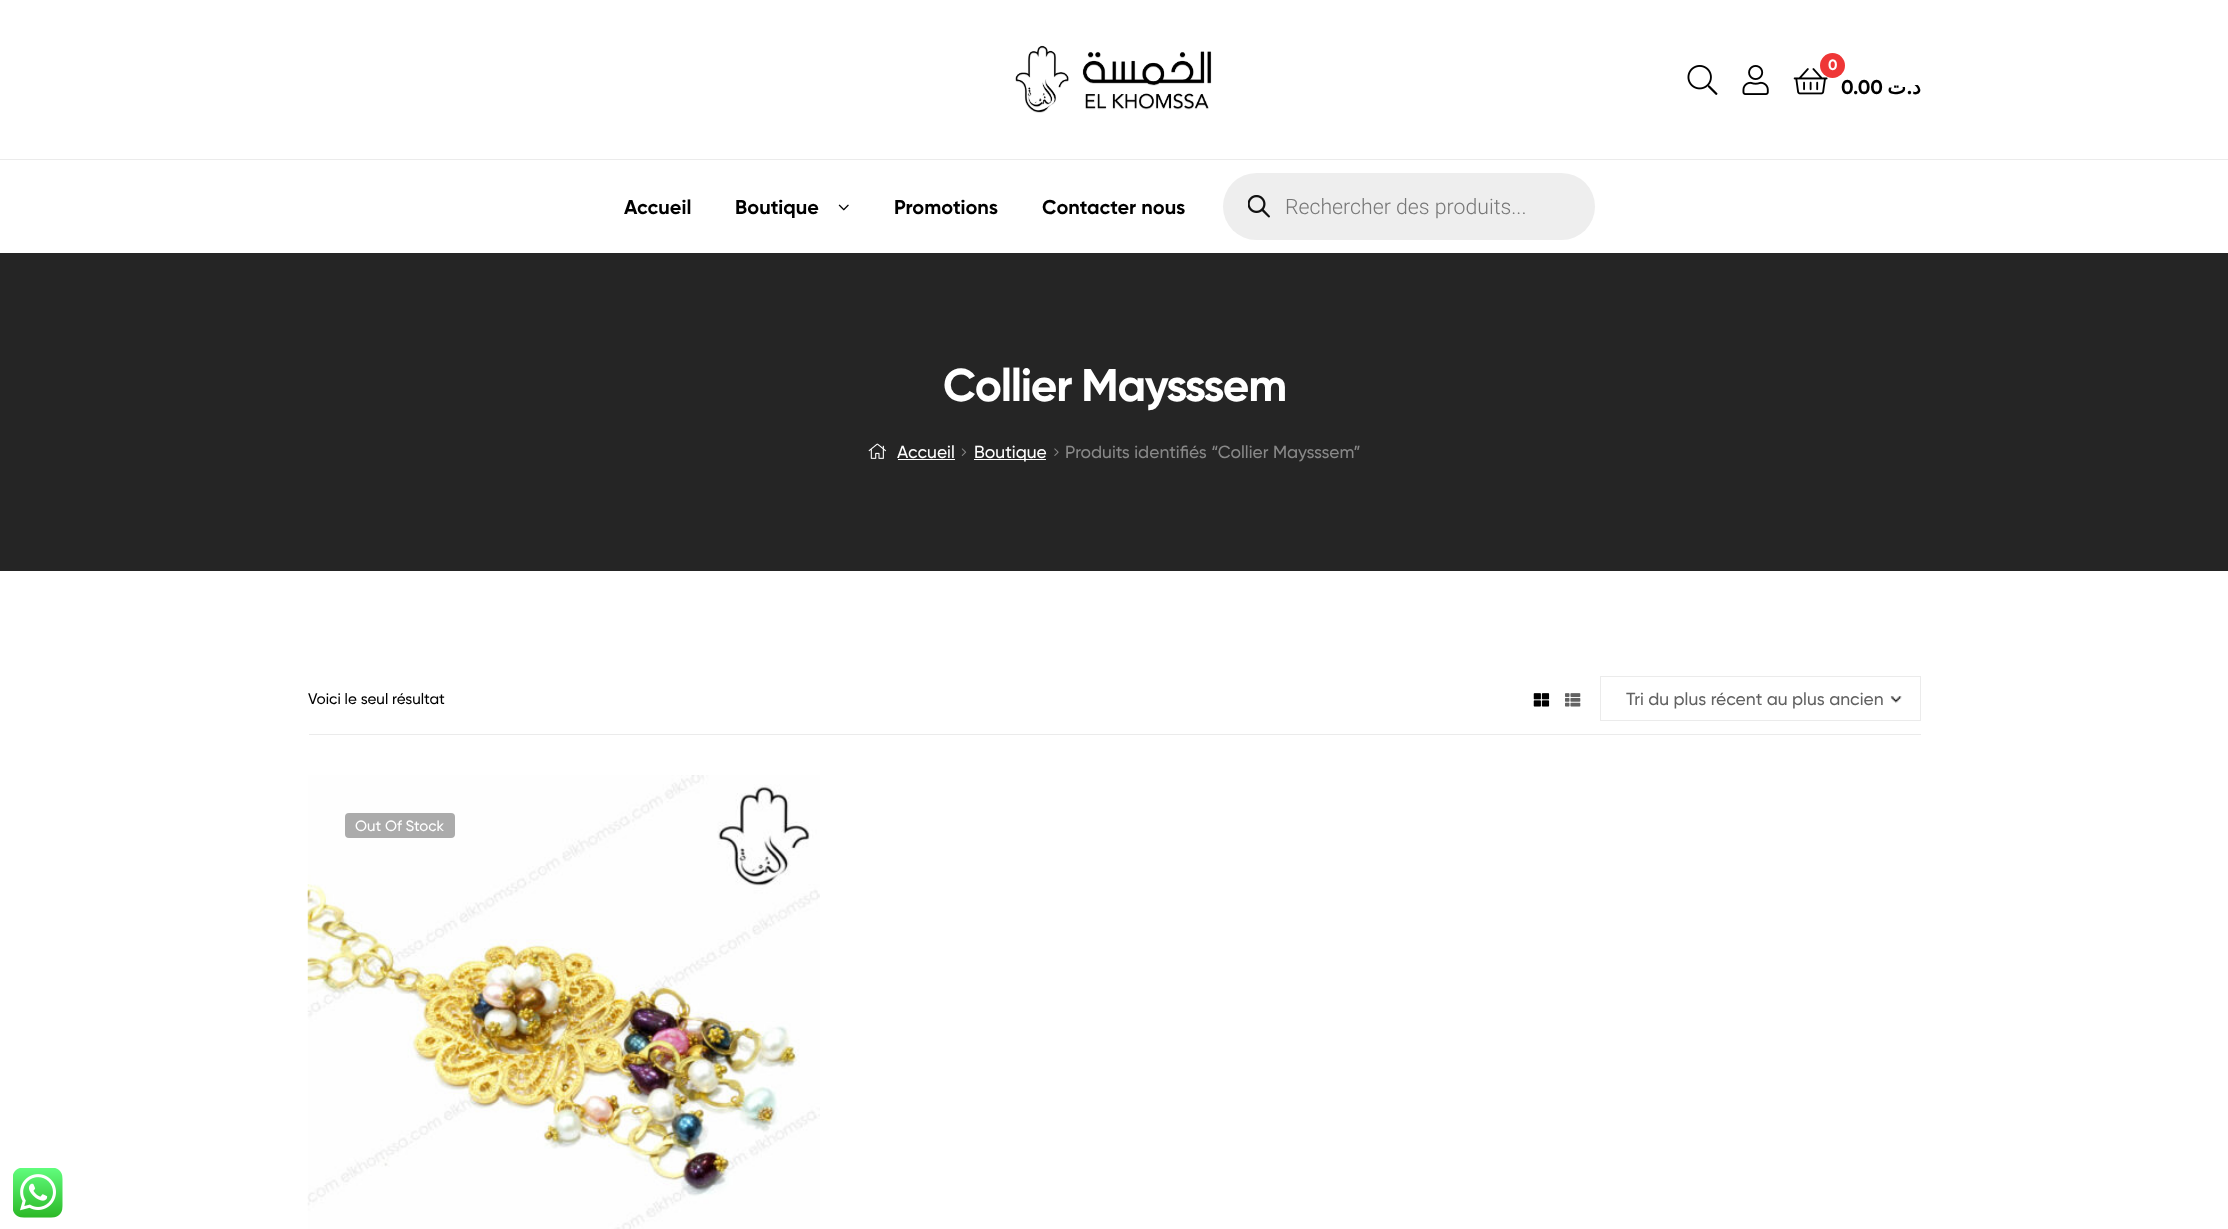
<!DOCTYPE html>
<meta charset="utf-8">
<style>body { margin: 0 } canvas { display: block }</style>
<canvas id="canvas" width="2228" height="1229"></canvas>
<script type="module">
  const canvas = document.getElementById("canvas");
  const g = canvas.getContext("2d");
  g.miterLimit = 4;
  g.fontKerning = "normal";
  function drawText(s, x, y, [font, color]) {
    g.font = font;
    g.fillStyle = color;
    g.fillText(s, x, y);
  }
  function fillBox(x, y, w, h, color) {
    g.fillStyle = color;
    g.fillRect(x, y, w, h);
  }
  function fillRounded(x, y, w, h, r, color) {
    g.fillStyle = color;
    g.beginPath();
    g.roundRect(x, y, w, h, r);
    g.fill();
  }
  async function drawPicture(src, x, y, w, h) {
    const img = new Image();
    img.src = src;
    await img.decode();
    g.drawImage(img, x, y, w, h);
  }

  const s1 = ["bold 15px Gilroy", "#FFFFFF"];
  const s2 = ["bold 20px Gilroy", "#000000"];
  const s3 = ["bold 20px DejaVu Sans", "#000000"];
  const s4 = ["300 21.25px Roboto", "#777777"];
  const s5 = ["bold 45.75px Gilroy", "#FFFFFF"];
  const s6 = ["500 17.5px Gilroy", "#FFFFFF"];
  const s7 = ["500 17.5px Gilroy", "#888888"];
  const s8 = ["500 15.25px Gilroy", "#000000"];
  const s9 = ["500 17.5px Gilroy", "#626262"];
  const s10 = ["500 15px Gilroy", "#FFFFFF"];

  fillBox(0, 0, 2228, 1229, "#FFFFFF");
  await drawPicture("pic1.png", 1015, 45, 197, 68);
  await drawPicture("pic2.png", 1687, 65, 31, 30);
  await drawPicture("pic3.png", 1742, 65, 27, 30);
  await drawPicture("pic4.png", 1793, 68, 35, 27);
  g.fillStyle = "#EF3636";
  g.beginPath();
  g.arc(1832.5, 65.5, 12.5, 0, Math.PI * 2);
  g.fill();
  drawText("0", 1828, 70, s1);
  drawText("0.00", 1841, 94, s2);
  g.direction = "rtl";
  drawText("ت", 1906, 94, s3);
  drawText(".", 1912, 94, s2);
  drawText("د", 1921, 94, s3);
  fillBox(0, 159, 2228, 1, "#EBEBEB");
  g.direction = "ltr";
  drawText("Accueil", 624, 214, s2);
  drawText("Boutique", 735, 214, s2);
  await drawPicture("pic5.png", 838, 204, 11, 7);
  drawText("Promotions", 894, 214, s2);
  drawText("Contacter nous", 1042, 214, s2);
  fillRounded(1223, 173, 372, 67, 33.5, "#EEEEEE");
  await drawPicture("pic6.png", 1248, 195, 22, 23);
  drawText("Rechercher des produits...", 1285, 214, s4);
  fillBox(0, 253, 2228, 318, "#252525");
  g.letterSpacing = "-1.25px";
  drawText("Collier Maysssem", 943, 401, s5);
  await drawPicture("pic7.png", 868, 443, 19, 16);
  g.letterSpacing = "0px";
  drawText("Accueil", 897, 458, s6);
  fillBox(898, 459, 57, 1, "#FFFFFF");
  await drawPicture("pic8.png", 961, 448, 6, 8);
  fillBox(974, 459, 72, 1, "#FFFFFF");
  drawText("Boutique", 974, 458, s6);
  await drawPicture("pic9.png", 1054, 448, 5, 8);
  drawText("Produits identifiés “Collier Maysssem”", 1065, 458, s7);
  fillBox(309, 734, 1612, 1, "#EBEBEB");
  drawText("Voici le seul résultat", 308, 704, s8);
  await drawPicture("pic10.png", 1533, 693, 17, 14);
  await drawPicture("pic11.png", 1565, 693, 16, 14);
  await drawPicture("pic12.png", 1890, 696, 12, 7);
  g.strokeStyle = "#EBEBEB";
  g.strokeRect(1600.5, 676.5, 320, 44);
  drawText("Tri du plus récent au plus ancien", 1626, 705, s9);
  await drawPicture("pic13.png", 307, 775, 513, 454);
  fillRounded(345, 813, 110, 25, 4, "#ABABAB");
  drawText("Out Of Stock", 355, 831, s10);
  await drawPicture("pic14.png", 13, 1168, 50, 50);
</script>
